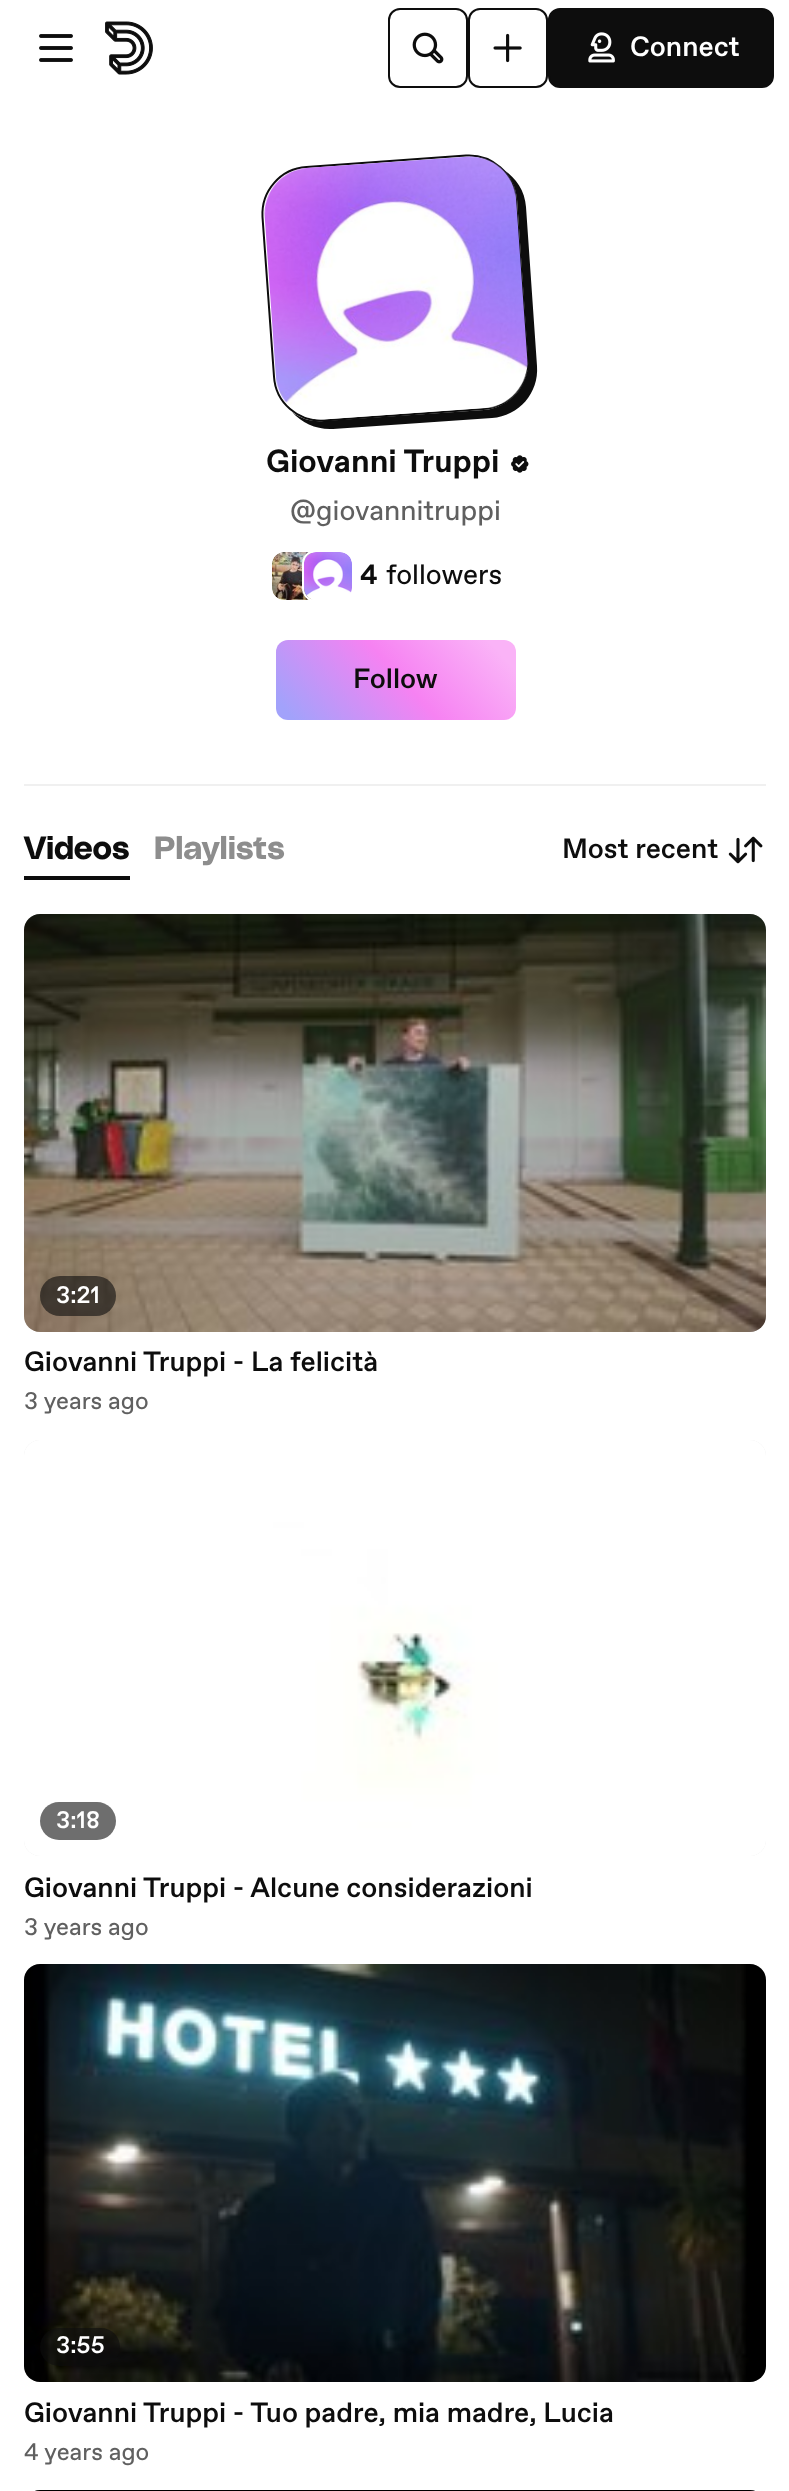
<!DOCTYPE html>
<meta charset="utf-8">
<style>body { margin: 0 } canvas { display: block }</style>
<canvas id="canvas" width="789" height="2491"></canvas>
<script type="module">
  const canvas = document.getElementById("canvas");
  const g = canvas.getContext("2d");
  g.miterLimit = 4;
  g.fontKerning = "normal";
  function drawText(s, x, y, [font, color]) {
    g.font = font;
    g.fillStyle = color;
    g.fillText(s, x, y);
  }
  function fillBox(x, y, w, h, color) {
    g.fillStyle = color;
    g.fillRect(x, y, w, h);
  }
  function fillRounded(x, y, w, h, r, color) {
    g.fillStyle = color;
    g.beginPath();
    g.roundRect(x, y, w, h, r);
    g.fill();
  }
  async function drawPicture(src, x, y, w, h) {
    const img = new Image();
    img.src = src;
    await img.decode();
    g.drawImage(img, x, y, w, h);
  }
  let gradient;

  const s1 = ["500 28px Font", "#FFFFFF"];
  const s2 = ["bold 32px Font", "#0D0D0D"];
  const s3 = ["28px Font", "#606060"];
  const s4 = ["bold 28px Font", "#0D0D0D"];
  const s5 = ["28px Font", "#0D0D0D"];
  const s6 = ["500 28px Font", "#0D0D0D"];
  const s7 = ["bold 32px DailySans", "#0D0D0D"];
  const s8 = ["bold 32px DailySans", "#8D8D8D"];
  const s9 = ["500 24px Font", "#FFFFFF"];
  const s10 = ["24px Font", "#606060"];

  fillBox(0, 0, 789, 2491, "#FFFFFF");
  await drawPicture("pic1.png", 39, 34, 34, 28);
  await drawPicture("pic2.png", 105, 21, 48, 54);
  g.beginPath();
  g.roundRect(389, 9, 78, 78, 11);
  g.strokeStyle = "#0D0D0D";
  g.lineWidth = 2;
  g.stroke();
  await drawPicture("pic3.png", 412, 32, 32, 32);
  g.beginPath();
  g.roundRect(469, 9, 78, 78, 11);
  g.stroke();
  await drawPicture("pic4.png", 493, 33, 29, 30);
  g.fillStyle = "#0D0D0D";
  g.beginPath();
  g.roundRect(549, 9, 224, 78, 11);
  g.fill();
  g.stroke();
  await drawPicture("pic5.png", 588, 32, 27, 31);
  drawText("Connect", 630, 56, s1);
  fillBox(24, 784, 742, 2, "#F0F0F0");
  g.fillStyle = "#0D0D0D";
  g.beginPath();
  g.moveTo(292, 412);
  g.bezierCurveTo(302, 423, 317, 430, 333, 429);
  g.lineTo(492, 418);
  g.bezierCurveTo(519, 416, 539, 393, 537, 366);
  g.lineTo(526, 207);
  g.bezierCurveTo(525, 191, 516, 178, 504, 170);
  g.bezierCurveTo(511, 177, 516, 188, 517, 199);
  g.lineTo(528, 359);
  g.bezierCurveTo(530, 385, 510, 408, 484, 410);
  g.lineTo(324, 421);
  g.bezierCurveTo(312, 422, 301, 419, 292, 412);
  g.closePath();
  g.fill();
  g.beginPath();
  g.moveTo(306.5, 167);
  g.lineTo(466, 155.5);
  g.bezierCurveTo(492, 154, 514.5, 173.5, 516, 199.5);
  g.lineTo(527.5, 359);
  g.bezierCurveTo(529, 385, 509.5, 407.5, 483.5, 409);
  g.lineTo(324, 420.5);
  g.bezierCurveTo(298, 422, 275.5, 402.5, 274, 376.5);
  g.lineTo(262.5, 217);
  g.bezierCurveTo(261, 191, 280.5, 168.5, 306.5, 167);
  g.closePath();
  g.stroke();
  await drawPicture("pic6.png", 264, 156, 264, 264);
  drawText("Giovanni Truppi", 266, 472, s2);
  await drawPicture("pic7.png", 511, 455, 18, 18);
  drawText("@giovannitruppi", 290, 520, s3);
  await drawPicture("pic8.png", 272, 552, 41, 48);
  g.beginPath();
  g.roundRect(271, 551, 50, 50, 13);
  g.strokeStyle = "#FFFFFF";
  g.stroke();
  await drawPicture("pic9.png", 304, 552, 48, 48);
  g.beginPath();
  g.roundRect(303, 551, 50, 50, 13);
  g.stroke();
  drawText("4", 360, 584, s4);
  drawText("followers", 386, 584, s5);
  gradient = g.createLinearGradient(482, 602, 310, 758);
  gradient.addColorStop(0.09, "#FAB3F7");
  gradient.addColorStop(0.48, "#F682F2");
  gradient.addColorStop(0.94, "#A2A2FB");
  g.fillStyle = gradient;
  g.beginPath();
  g.roundRect(276, 640, 240, 80, 12);
  g.fill();
  drawText("Follow", 353, 688, s6);
  fillBox(24, 876, 106, 4, "#0D0D0D");
  g.letterSpacing = "0.25px";
  drawText("Videos", 24, 859, s7);
  drawText("Playlists", 154, 859, s8);
  g.letterSpacing = "0px";
  drawText("Most recent", 562, 858, s6);
  await drawPicture("pic10.png", 728, 836, 35, 28);
  fillRounded(24, 914, 742, 418, 16, "#E8E8E8");
  await drawPicture("pic11.png", 24, 914, 742, 418);
  fillRounded(40, 1276, 76, 40, 20, "rgba(13, 13, 13, 0.6)");
  drawText("3:21", 56, 1303, s9);
  drawText("Giovanni Truppi - La felicità", 24, 1371, s6);
  drawText("3 years ago", 24, 1409, s10);
  fillRounded(24, 1440, 742, 416, 16, "#E8E8E8");
  await drawPicture("pic12.png", 24, 1440, 742, 416);
  fillRounded(40, 1802, 76, 38, 19, "#6E6E6E");
  drawText("3:18", 56, 1828, s9);
  drawText("Giovanni Truppi - Alcune considerazioni", 24, 1897, s6);
  g.save();
  g.beginPath();
  g.rect(24, 1904, 726, 36);
  g.clip();
  drawText("3 years ago", 24, 1935, s10);
  g.restore();
  fillRounded(24, 1964, 742, 418, 16, "#E8E8E8");
  await drawPicture("pic13.png", 24, 1964, 742, 418);
  fillRounded(40, 2328, 80, 38, 19, "rgba(13, 13, 13, 0.6)");
  drawText("3:55", 56, 2353, s9);
  drawText("Giovanni Truppi - Tuo padre, mia madre, Lucia", 24, 2422, s6);
  drawText("4 years ago", 24, 2460, s10);
  await drawPicture("pic14.png", 35, 2490, 720, 1);
</script>
